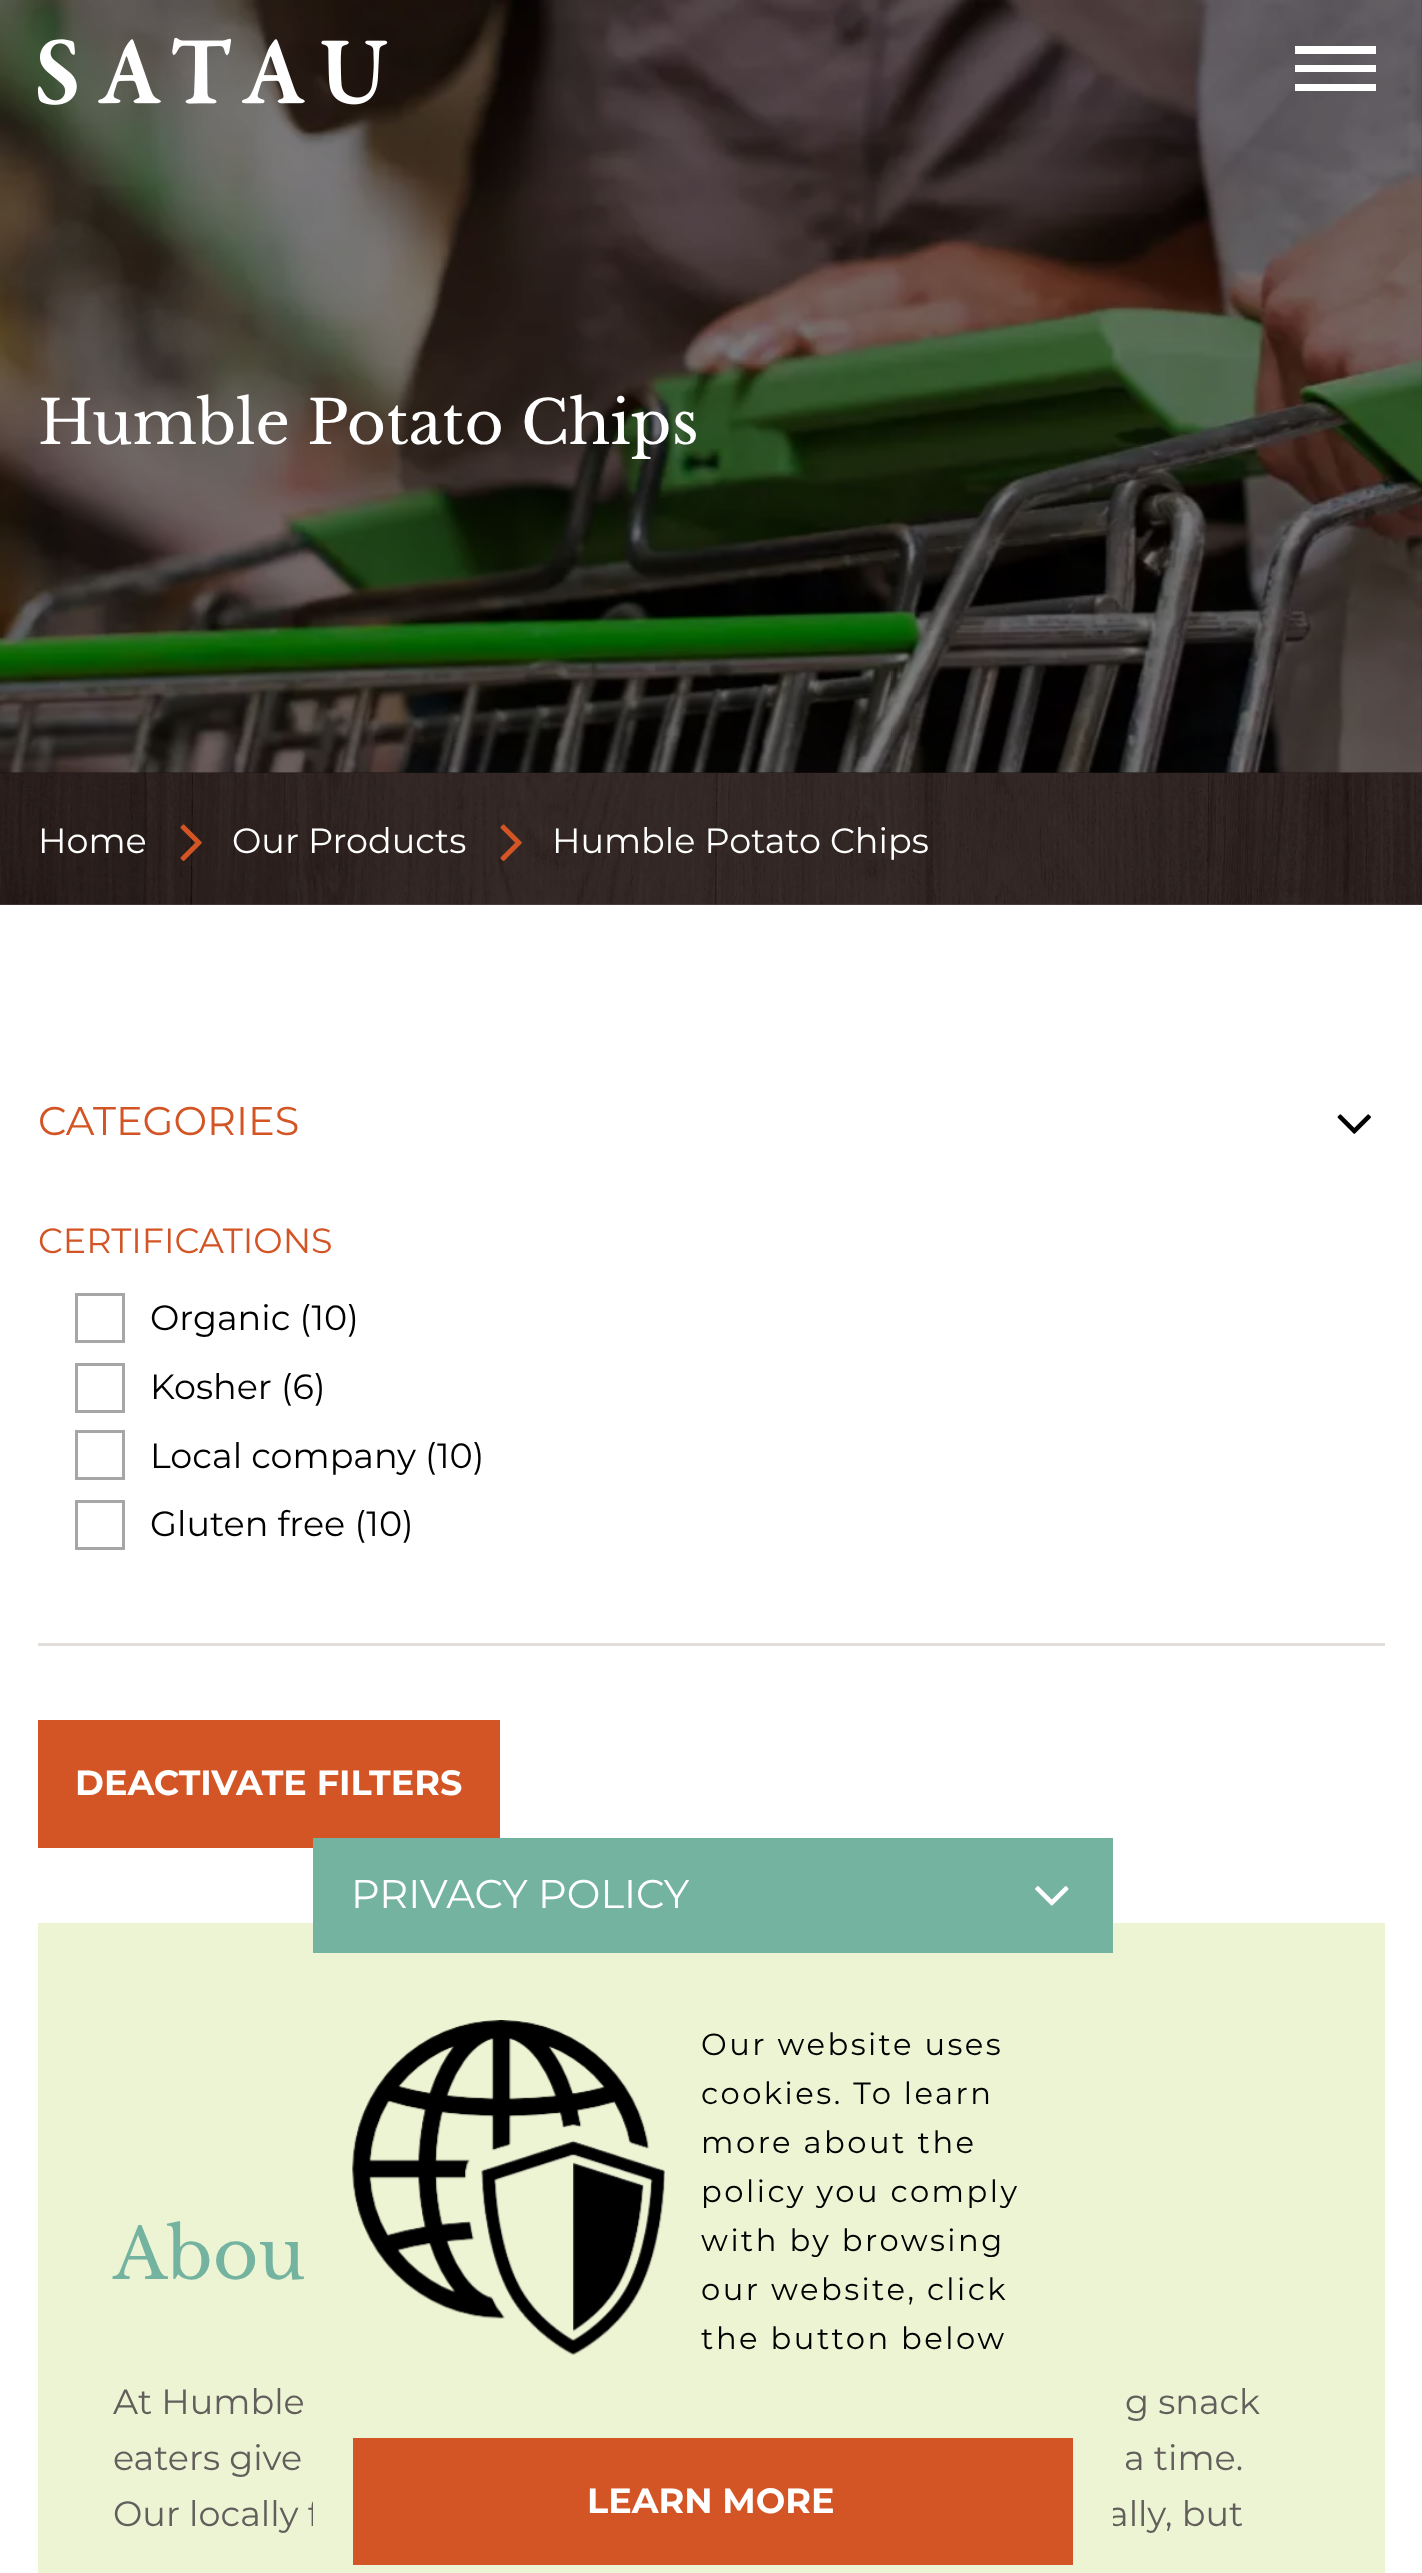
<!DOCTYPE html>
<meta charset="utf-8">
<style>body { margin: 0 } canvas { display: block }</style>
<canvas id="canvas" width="1422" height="2573"></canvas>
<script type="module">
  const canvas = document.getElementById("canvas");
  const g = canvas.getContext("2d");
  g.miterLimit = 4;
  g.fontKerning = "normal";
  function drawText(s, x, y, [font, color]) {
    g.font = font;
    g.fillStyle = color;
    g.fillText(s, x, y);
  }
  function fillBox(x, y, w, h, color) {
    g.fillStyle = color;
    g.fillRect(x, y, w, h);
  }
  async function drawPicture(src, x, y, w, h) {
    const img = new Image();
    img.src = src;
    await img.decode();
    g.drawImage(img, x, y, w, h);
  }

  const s1 = ["60px Libre Baskerville", "#FFFFFF"];
  const s2 = ["35px Montserrat", "#FFFFFF"];
  const s3 = ["40px Montserrat", "#D35525"];
  const s4 = ["35px Montserrat", "#D35525"];
  const s5 = ["35px Montserrat", "#000000"];
  const s6 = ["bold 35px Montserrat", "#FFFFFF"];
  const s7 = ["70px Libre Baskerville", "#74B3A0"];
  const s8 = ["35px Montserrat", "#615E5C"];
  const s9 = ["40px Montserrat", "#FFFFFF"];
  const s10 = ["30.6px Montserrat", "#000000"];

  fillBox(0, 0, 1422, 2573, "#FFFFFF");
  fillBox(0, 0, 1422, 773, "#1A1413");
  await drawPicture("pic2.png", 0, 0, 1422, 773);
  await drawPicture("pic1.png", 38, 38, 350, 67);
  fillBox(1295, 46, 81, 8, "#FFFFFF");
  fillBox(1295, 65, 81, 7, "#FFFFFF");
  fillBox(1295, 84, 81, 7, "#FFFFFF");
  drawText("Humble Potato Chips", 38, 444, s1);
  await drawPicture("pic3.png", 0, 773, 1422, 132);
  drawText("Home", 38, 853, s2);
  await drawPicture("pic4.png", 180, 824, 22, 37);
  drawText("Our Products", 232, 853, s2);
  await drawPicture("pic5.png", 500, 824, 22, 37);
  drawText("Humble Potato Chips", 552, 853, s2);
  drawText("CATEGORIES", 38, 1135, s3);
  await drawPicture("pic6.png", 1337, 1114, 34, 20);
  fillBox(38, 1643, 1347, 3, "#E1DDDA");
  drawText("CERTIFICATIONS", 38, 1253, s4);
  g.strokeStyle = "#A6A6A6";
  g.lineWidth = 3;
  g.strokeRect(76.5, 1294.5, 47, 47);
  drawText("Organic (10)", 150, 1330, s5);
  g.strokeRect(76.5, 1364.5, 47, 47);
  drawText("Kosher (6)", 150, 1399, s5);
  g.strokeRect(76.5, 1431.5, 47, 47);
  drawText("Local company (10)", 150, 1468, s5);
  g.strokeRect(76.5, 1501.5, 47, 47);
  drawText("Gluten free (10)", 150, 1536, s5);
  fillBox(38, 1720, 462, 128, "#D35525");
  drawText("DEACTIVATE FILTERS", 75, 1795, s6);
  fillBox(38, 1923, 1347, 650, "#EDF4D3");
  drawText("Abou", 113, 2279, s7);
  drawText("At Humble", 113, 2414, s8);
  drawText("g snack", 1125, 2414, s8);
  drawText("eaters give", 113, 2470, s8);
  drawText("a time.", 1124, 2470, s8);
  drawText("Our locally f", 113, 2526, s8);
  drawText("ally, but", 1108, 2526, s8);
  fillBox(313, 1838, 800, 115, "#74B3A0");
  drawText("PRIVACY POLICY", 351, 1908, s9);
  await drawPicture("pic7.png", 1035, 1886, 34, 20);
  fillBox(313, 2499, 800, 27, "#EDF4D3");
  await drawPicture("pic8.png", 352, 2020, 313, 336);
  g.letterSpacing = "2.5px";
  drawText("Our website uses", 701, 2055, s10);
  drawText("cookies. To learn", 701, 2104, s10);
  drawText("more about the", 701, 2153, s10);
  drawText("policy you comply", 701, 2202, s10);
  drawText("with by browsing", 701, 2251, s10);
  drawText("our website, click", 701, 2300, s10);
  drawText("the button below", 701, 2349, s10);
  fillBox(353, 2438, 720, 127, "#D35525");
  g.letterSpacing = "0px";
  drawText("LEARN MORE", 587, 2513, s6);
</script>
